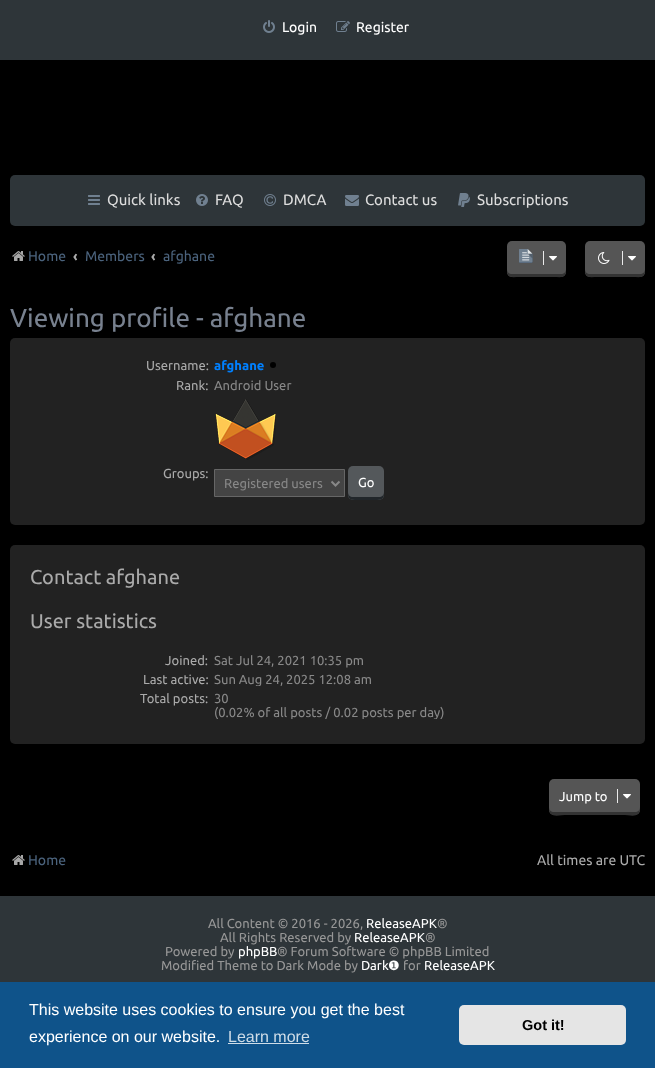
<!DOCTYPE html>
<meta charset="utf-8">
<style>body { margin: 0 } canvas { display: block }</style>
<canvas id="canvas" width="655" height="1068"></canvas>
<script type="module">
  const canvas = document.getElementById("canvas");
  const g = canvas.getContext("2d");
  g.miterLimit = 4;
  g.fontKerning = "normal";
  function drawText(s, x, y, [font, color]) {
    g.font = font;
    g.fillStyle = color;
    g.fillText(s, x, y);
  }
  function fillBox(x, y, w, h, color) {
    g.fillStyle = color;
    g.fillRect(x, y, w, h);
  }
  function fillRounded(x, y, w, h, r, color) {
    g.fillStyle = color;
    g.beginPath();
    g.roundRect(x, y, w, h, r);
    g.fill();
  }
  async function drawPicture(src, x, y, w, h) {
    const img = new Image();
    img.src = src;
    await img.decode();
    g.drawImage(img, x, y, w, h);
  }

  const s1 = ["14px Ubuntu", "#FFFFFF"];
  const s2 = ["15px Ubuntu", "#DDDDDD"];
  const s3 = ["14px Ubuntu", "#4B637D"];
  const s4 = ["bold 14px Ubuntu", "#AAAAAA"];
  const s5 = ["26px Ubuntu", "#78818F"];
  const s6 = ["13px Ubuntu", "#AAAAAA"];
  const s7 = ["bold 13px Ubuntu", "#0080FF"];
  const s8 = ["13px Ubuntu", "#888888"];
  const s9 = ["13px Ubuntu", "#FFFFFF"];
  const s10 = ["20px Ubuntu", "#AAAAAA"];
  const s11 = ["14px Ubuntu", "#AAAAAA"];
  const s12 = ["13px Ubuntu", "#979797"];
  const s13 = ["13px DejaVu Sans", "#FFFFFF"];
  const s14 = ["16px Liberation Sans", "#FFFFFF"];
  const s15 = ["16px Liberation Sans", "#CFDDE8"];
  const s16 = ["bold 14.5px Liberation Sans", "#000000"];

  fillBox(0, 0, 655, 1068, "#000000");
  fillBox(0, 0, 655, 60, "#2E3539");
  await drawPicture("pic1.png", 263, 20, 12, 13);
  drawText("Login", 282, 32, s1);
  await drawPicture("pic2.png", 336, 21, 14, 11);
  drawText("Register", 356, 32, s1);
  fillRounded(10, 175, 635, 51, 5, "#2E3539");
  await drawPicture("pic3.png", 88, 195, 12, 10);
  drawText("Quick links", 107, 205, s2);
  await drawPicture("pic4.png", 196, 194, 12, 12);
  drawText("FAQ", 215, 205, s2);
  await drawPicture("pic5.png", 264, 194, 12, 12);
  drawText("DMCA", 283, 205, s2);
  await drawPicture("pic6.png", 345, 195, 14, 11);
  drawText("Contact us", 365, 205, s2);
  await drawPicture("pic7.png", 458, 193, 12, 14);
  drawText("Subscriptions", 477, 205, s2);
  await drawPicture("pic8.png", 12, 251, 13, 10);
  drawText("Home", 28, 261, s3);
  drawText("‹", 73, 261, s4);
  drawText("Members", 85, 261, s3);
  drawText("‹", 151, 261, s4);
  drawText("afghane", 163, 261, s3);
  fillRounded(507, 241, 59, 36, 5, "#555555");
  g.fillStyle = "#333333";
  g.beginPath();
  g.moveTo(507, 269);
  g.bezierCurveTo(507, 279, 511, 277, 520, 277);
  g.lineTo(553, 277);
  g.bezierCurveTo(562, 277, 566, 279, 566, 269);
  g.bezierCurveTo(566, 272, 564, 274, 561, 274);
  g.lineTo(512, 274);
  g.bezierCurveTo(509, 274, 507, 272, 507, 269);
  g.closePath();
  g.fill();
  await drawPicture("pic9.png", 519, 249, 14, 14);
  fillBox(543, 251, 1, 14, "#EAEAEA");
  await drawPicture("pic10.png", 549, 256, 8, 5);
  fillRounded(585, 241, 60, 36, 5, "#555555");
  g.fillStyle = "#333333";
  g.beginPath();
  g.moveTo(585, 269);
  g.bezierCurveTo(585, 279, 589, 277, 598, 277);
  g.lineTo(632, 277);
  g.bezierCurveTo(641, 277, 645, 279, 645, 269);
  g.bezierCurveTo(645, 272, 643, 274, 640, 274);
  g.lineTo(590, 274);
  g.bezierCurveTo(587, 274, 585, 272, 585, 269);
  g.closePath();
  g.fill();
  await drawPicture("pic11.png", 598, 252, 12, 12);
  fillBox(622, 251, 1, 14, "#EAEAEA");
  await drawPicture("pic10.png", 628, 256, 8, 5);
  drawText("Viewing profile - afghane", 10, 327, s5);
  fillRounded(10, 338, 635, 187, 5, "#222222");
  drawText("Username:", 146, 370, s6);
  drawText("afghane", 214, 370, s7);
  g.fillStyle = "#000000";
  g.beginPath();
  g.arc(273, 365, 3, 0, Math.PI * 2);
  g.fill();
  drawText("Rank:", 176, 390, s6);
  drawText("Android User", 214, 390, s8);
  await drawPicture("pic12.png", 215, 399, 61, 61);
  drawText("Groups:", 163, 478, s6);
  g.fillStyle = "#444444";
  g.beginPath();
  g.rect(214.5, 469.5, 130, 27);
  g.fill();
  g.strokeStyle = "#666666";
  g.stroke();
  g.beginPath();
  g.moveTo(331.5, 481.5);
  g.lineTo(335.5, 485.5);
  g.lineTo(339.5, 481.5);
  g.strokeStyle = "#888888";
  g.lineWidth = 2;
  g.stroke();
  drawText("Registered users", 224, 488, s8);
  fillRounded(348, 466, 36, 34, 5, "#54585B");
  g.fillStyle = "#21262A";
  g.beginPath();
  g.moveTo(348, 492);
  g.bezierCurveTo(348, 499.5, 350, 500, 357.5, 500);
  g.lineTo(374.5, 500);
  g.bezierCurveTo(382, 500, 384, 499.5, 384, 492);
  g.bezierCurveTo(384, 495, 382, 497, 379, 497);
  g.lineTo(353, 497);
  g.bezierCurveTo(350, 497, 348, 495, 348, 492);
  g.closePath();
  g.fill();
  drawText("Go", 358, 487, s9);
  fillRounded(10, 545, 635, 199, 5, "#222222");
  drawText("Contact afghane", 30, 584, s10);
  drawText("User statistics", 30, 628, s10);
  drawText("Joined:", 165, 665, s6);
  drawText("Sat Jul 24, 2021 10:35 pm", 214, 665, s8);
  drawText("Last active:", 143, 684, s6);
  g.save();
  g.beginPath();
  g.rect(209, 672, 391, 14);
  g.clip();
  drawText("Sun Aug 24, 2025 12:08 am", 214, 684, s8);
  g.restore();
  drawText("Total posts:", 140, 703, s6);
  drawText("30", 214, 703, s8);
  g.save();
  g.beginPath();
  g.rect(209, 691, 391, 28);
  g.clip();
  drawText("(0.02% of all posts / 0.02 posts per day)", 214, 717, s8);
  g.restore();
  fillRounded(549, 779, 91, 36, 5, "#555555");
  g.fillStyle = "#333333";
  g.beginPath();
  g.moveTo(549, 807);
  g.bezierCurveTo(549, 819, 557, 815, 568, 815);
  g.lineTo(622, 815);
  g.bezierCurveTo(632, 815, 640, 819, 640, 807);
  g.bezierCurveTo(640, 810, 638, 812, 635, 812);
  g.lineTo(554, 812);
  g.bezierCurveTo(551, 812, 549, 810, 549, 807);
  g.closePath();
  g.fill();
  drawText("Jump to", 559, 801, s9);
  fillBox(617, 789, 1, 14, "#EAEAEA");
  await drawPicture("pic10.png", 623, 794, 8, 5);
  await drawPicture("pic8.png", 12, 855, 13, 10);
  drawText("Home", 28, 865, s3);
  drawText("All times are UTC", 537, 865, s11);
  fillBox(0, 896, 655, 86, "#2E3539");
  drawText("All Content © 2016 - 2026,", 208, 928, s12);
  drawText("ReleaseAPK", 366, 928, s9);
  drawText("®", 437, 928, s12);
  drawText("All Rights Reserved by", 220, 942, s12);
  drawText("ReleaseAPK", 354, 942, s9);
  drawText("®", 425, 942, s12);
  drawText("Powered by", 165, 956, s12);
  drawText("phpBB", 238, 956, s9);
  drawText("® Forum Software © phpBB Limited", 277, 956, s12);
  drawText("Modified Theme to Dark Mode by", 161, 970, s12);
  drawText("Dark", 361, 970, s9);
  drawText("❶", 388, 970, s13);
  drawText("for", 403, 970, s12);
  drawText("ReleaseAPK", 424, 970, s9);
  fillBox(0, 982, 655, 86, "#0F538A");
  drawText("This website uses cookies to ensure you get the best", 29, 1015, s14);
  drawText("experience on our website.", 29, 1042, s14);
  drawText("Learn more", 228, 1042, s15);
  fillBox(228, 1043, 81, 1, "#CFDDE8");
  fillRounded(459, 1005, 167, 40, 5, "#E5E5E5");
  drawText("Got it!", 522, 1030, s16);
</script>
